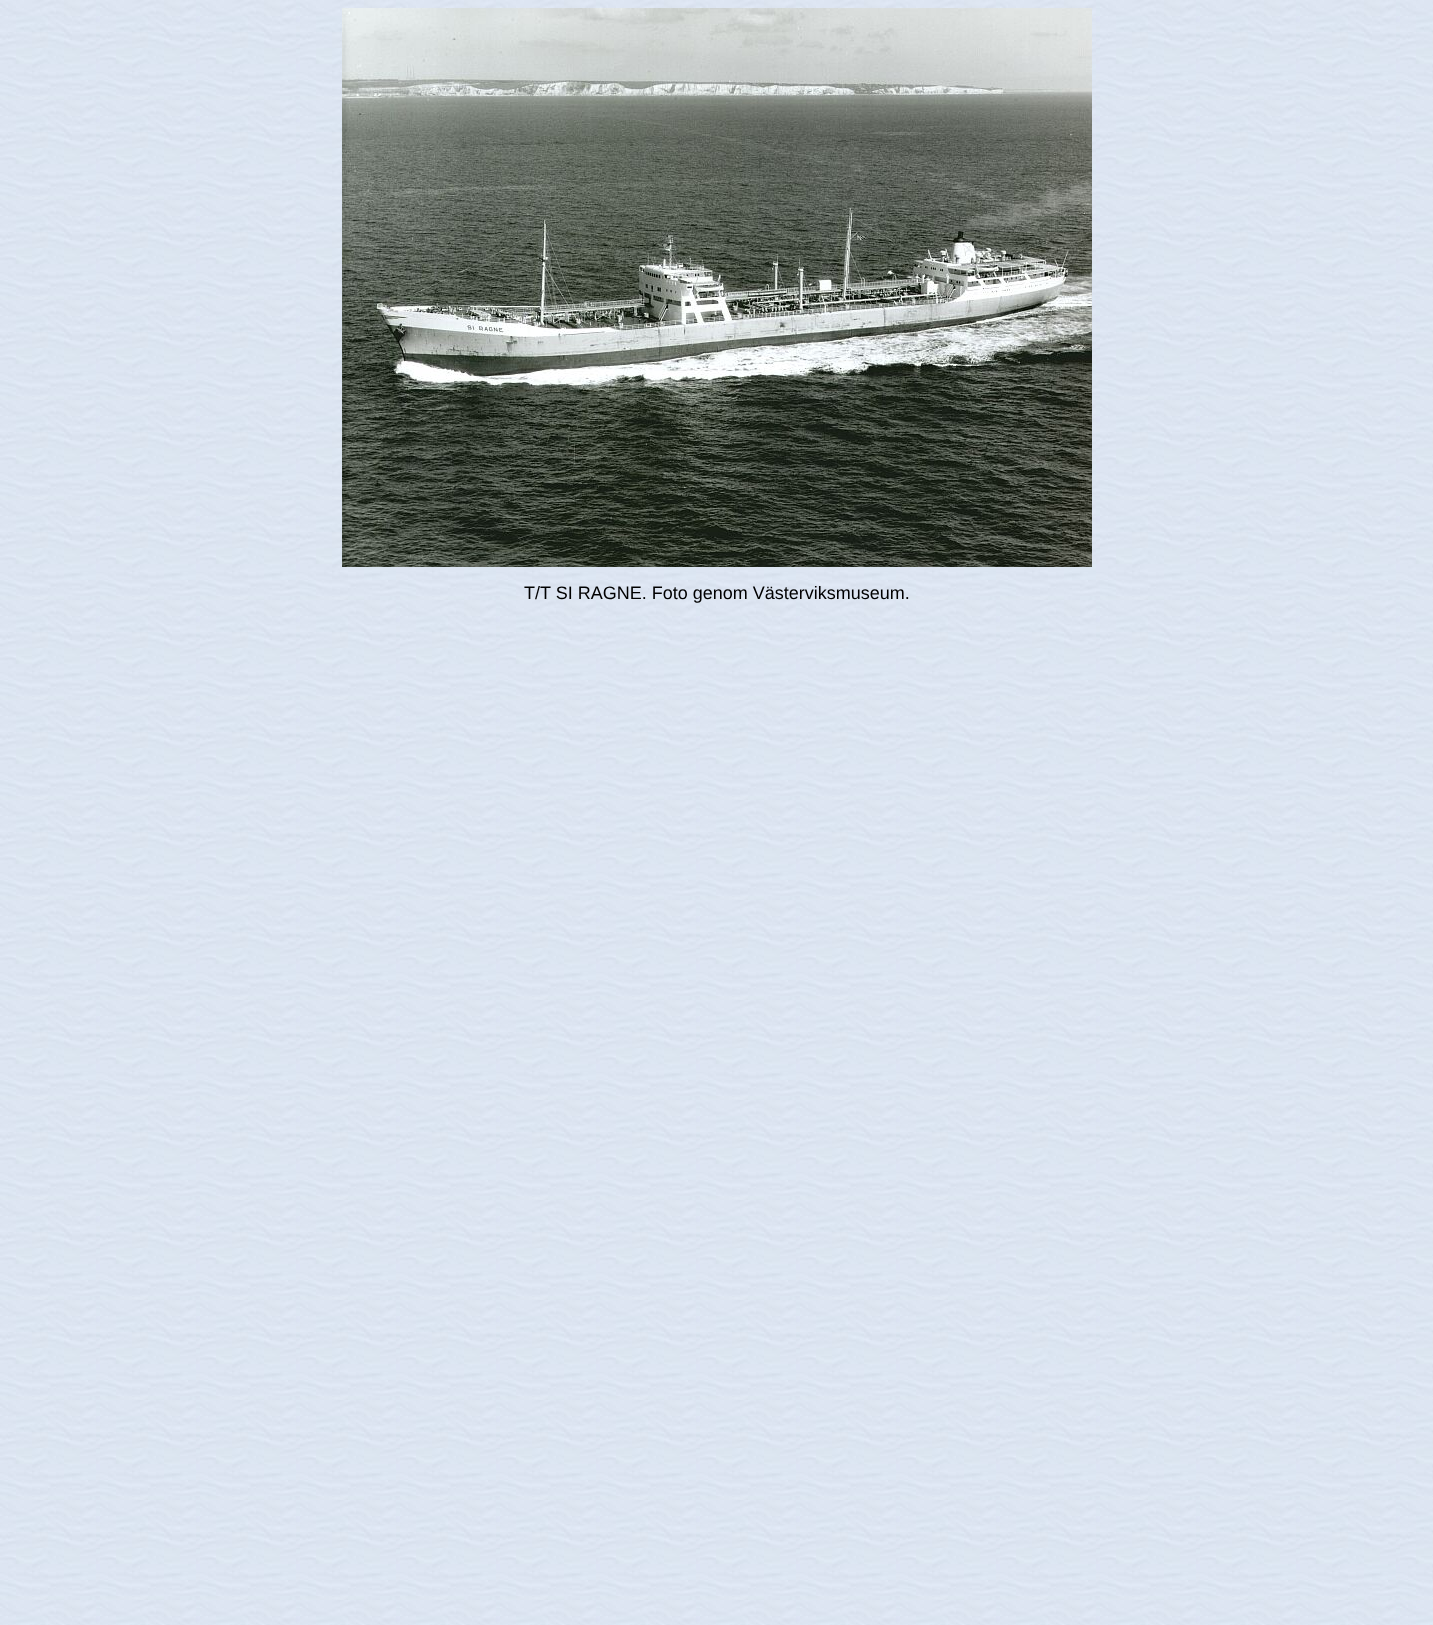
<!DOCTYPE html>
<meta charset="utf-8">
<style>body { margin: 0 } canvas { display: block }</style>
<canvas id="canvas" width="1433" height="1625"></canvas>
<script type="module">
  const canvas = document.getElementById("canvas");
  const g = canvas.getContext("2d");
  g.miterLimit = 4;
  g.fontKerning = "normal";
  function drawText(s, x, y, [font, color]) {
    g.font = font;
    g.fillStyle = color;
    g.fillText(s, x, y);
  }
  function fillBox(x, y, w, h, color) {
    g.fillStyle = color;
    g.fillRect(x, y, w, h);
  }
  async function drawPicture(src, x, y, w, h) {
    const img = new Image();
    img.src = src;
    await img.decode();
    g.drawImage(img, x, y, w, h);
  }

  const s1 = ["18px Liberation Sans", "#000000"];

  fillBox(0, 0, 1433, 1625, "#FFFFFF");
  await drawPicture("pic1.png", 0, 0, 1433, 1625);
  await drawPicture("pic2.png", 342, 8, 750, 559);
  drawText("T/T SI RAGNE. Foto genom Västerviksmuseum.", 524, 599, s1);
</script>
